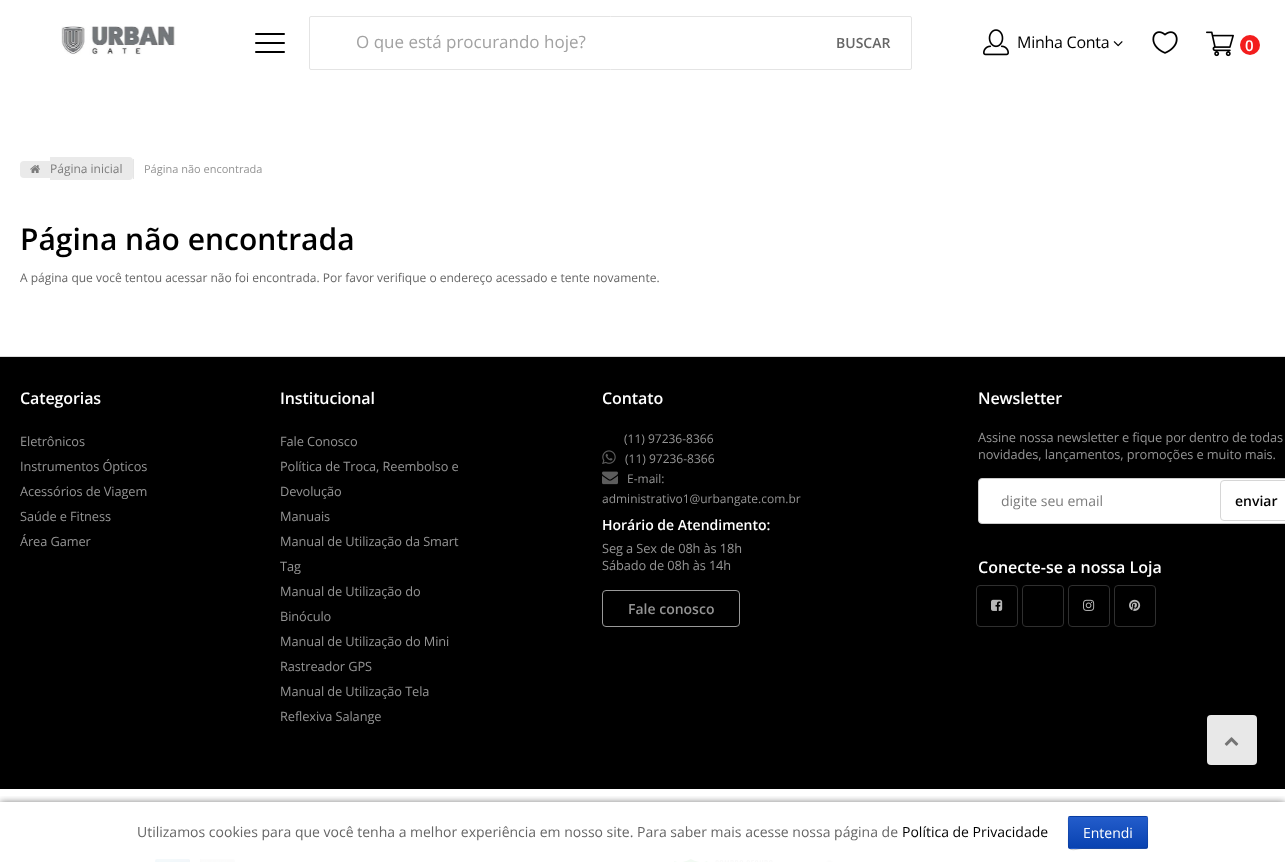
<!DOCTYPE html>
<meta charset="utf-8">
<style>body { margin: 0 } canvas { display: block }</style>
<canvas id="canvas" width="1285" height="862"></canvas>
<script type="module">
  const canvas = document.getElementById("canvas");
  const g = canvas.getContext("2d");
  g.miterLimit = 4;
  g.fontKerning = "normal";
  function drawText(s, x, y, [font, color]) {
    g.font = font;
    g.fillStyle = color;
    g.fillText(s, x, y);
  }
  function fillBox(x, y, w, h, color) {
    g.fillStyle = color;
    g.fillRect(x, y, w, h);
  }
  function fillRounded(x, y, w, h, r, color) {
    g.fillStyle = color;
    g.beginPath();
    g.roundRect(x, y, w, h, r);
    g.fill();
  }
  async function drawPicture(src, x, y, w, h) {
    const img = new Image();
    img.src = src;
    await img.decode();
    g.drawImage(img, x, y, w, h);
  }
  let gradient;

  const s1 = ["17px Open Sans", "#A2A2A2"];
  const s2 = ["600 14px Open Sans", "#666666"];
  const s3 = ["16px Open Sans", "#000000"];
  const s4 = ["600 15px Open Sans", "#FFFFFF"];
  const s5 = ["12px Open Sans", "#7C7C7C"];
  const s6 = ["11px Open Sans", "#949494"];
  const s7 = ["600 30px Open Sans", "#000000"];
  const s8 = ["12px Open Sans", "#666666"];
  const s9 = ["600 16px Open Sans", "#FFFFFF"];
  const s10 = ["12.8px Open Sans", "#949494"];
  const s11 = ["12px Open Sans", "#949494"];
  const s12 = ["600 14px Open Sans", "#FFFFFF"];
  const s13 = ["600 14px Open Sans", "#949494"];
  const s14 = ["14px Open Sans", "#7C7C7C"];
  const s15 = ["600 14px Open Sans", "#000000"];
  const s16 = ["14px Open Sans", "#666666"];
  const s17 = ["14px Open Sans", "#000000"];
  const s18 = ["14px Open Sans", "#FFFFFF"];

  fillBox(0, 0, 1285, 862, "#FFFFFF");
  await drawPicture("pic1.png", 61, 26, 115, 29);
  fillRounded(255, 33, 30, 2, 1, "#000000");
  fillRounded(255, 42, 30, 2, 1, "#000000");
  fillRounded(255, 51, 30, 2, 1, "#000000");
  g.beginPath();
  g.roundRect(309.5, 16.5, 602, 53, 1.5);
  g.strokeStyle = "#E4E4E4";
  g.stroke();
  drawText("O que está procurando hoje?", 356, 48, s1);
  drawText("BUSCAR", 836, 48, s2);
  await drawPicture("pic2.png", 983, 29, 26, 27);
  g.letterSpacing = "-0.25px";
  drawText("Minha Conta", 1017, 48, s3);
  await drawPicture("pic3.png", 1113, 41, 10, 6);
  await drawPicture("pic4.png", 1152, 31, 26, 23);
  await drawPicture("pic5.png", 1206, 31, 28, 26);
  g.fillStyle = "#F31D1D";
  g.beginPath();
  g.arc(1250, 45, 10, 0, Math.PI * 2);
  g.fill();
  g.letterSpacing = "0px";
  drawText("0", 1245, 51, s4);
  g.fillStyle = "#EAEAEA";
  g.beginPath();
  g.roundRect(20, 161, 30, 17, [4, 0, 0, 4]);
  g.fill();
  g.beginPath();
  g.roundRect(50, 157, 83, 23, [0, 4, 4, 0]);
  g.fill();
  await drawPicture("pic6.png", 30, 165, 10, 8);
  drawText("Página inicial", 50, 173, s5);
  fillBox(133, 159, 1, 20, "#E6E6E6");
  drawText("Página não encontrada", 144, 173, s6);
  drawText("Página não encontrada", 20, 250, s7);
  drawText("A página que você tentou acessar não foi encontrada. Por favor verifique o endereço acessado e tente novamente.", 20, 282, s8);
  fillBox(0, 357, 1285, 432, "#000000");
  fillBox(0, 356, 1285, 1, "#DCDCDC");
  g.letterSpacing = "-0.1px";
  drawText("Categorias", 20, 404, s9);
  drawText("Eletrônicos", 20, 446, s10);
  drawText("Instrumentos Ópticos", 20, 471, s10);
  drawText("Acessórios de Viagem", 20, 496, s10);
  drawText("Saúde e Fitness", 20, 521, s10);
  drawText("Área Gamer", 20, 546, s10);
  drawText("Institucional", 280, 404, s9);
  drawText("Fale Conosco", 280, 446, s10);
  drawText("Política de Troca, Reembolso e", 280, 471, s10);
  drawText("Devolução", 280, 496, s10);
  drawText("Manuais", 280, 521, s10);
  drawText("Manual de Utilização da Smart", 280, 546, s10);
  drawText("Tag", 280, 571, s10);
  drawText("Manual de Utilização do", 280, 596, s10);
  drawText("Binóculo", 280, 621, s10);
  drawText("Manual de Utilização do Mini", 280, 646, s10);
  drawText("Rastreador GPS", 280, 671, s10);
  drawText("Manual de Utilização Tela", 280, 696, s10);
  drawText("Reflexiva Salange", 280, 721, s10);
  drawText("Contato", 602, 404, s9);
  g.letterSpacing = "0px";
  drawText("(11) 97236-8366", 624, 443, s11);
  await drawPicture("pic7.png", 602, 450, 14, 14);
  drawText("(11) 97236-8366", 625, 463, s11);
  await drawPicture("pic8.png", 602, 471, 16, 14);
  drawText("E-mail:", 627, 483, s11);
  drawText("administrativo1@urbangate.com.br", 602, 503, s11);
  drawText("Horário de Atendimento:", 602, 530, s12);
  g.letterSpacing = "-0.1px";
  drawText("Seg a Sex de 08h às 18h", 602, 553, s10);
  drawText("Sábado de 08h às 14h", 602, 570, s10);
  g.beginPath();
  g.roundRect(602.5, 590.5, 137, 36, 3.5);
  g.strokeStyle = "#999999";
  g.stroke();
  g.letterSpacing = "0px";
  drawText("Fale conosco", 628, 614, s13);
  g.letterSpacing = "-0.1px";
  drawText("Newsletter", 978, 404, s9);
  drawText("Assine nossa newsletter e fique por dentro de todas", 978, 442, s10);
  drawText("novidades, lançamentos, promoções e muito mais.", 978, 459, s10);
  g.fillStyle = "#FFFFFF";
  g.beginPath();
  g.roundRect(978.5, 478.5, 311, 45, 3.5);
  g.fill();
  g.strokeStyle = "#CCCCCC";
  g.stroke();
  g.letterSpacing = "0px";
  drawText("digite seu email", 1001, 506, s14);
  g.beginPath();
  g.roundRect(1220.5, 480.5, 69, 40, 3.5);
  g.strokeStyle = "#D6D6D6";
  g.stroke();
  drawText("enviar", 1235, 506, s15);
  drawText("Conecte-se a nossa Loja", 978, 573, s9);
  g.beginPath();
  g.roundRect(976.5, 585.5, 41, 41, 3.5);
  g.strokeStyle = "#2F2F2F";
  g.stroke();
  await drawPicture("pic9.png", 991, 599, 12, 12);
  g.beginPath();
  g.roundRect(1022.5, 585.5, 41, 41, 3.5);
  g.stroke();
  g.beginPath();
  g.roundRect(1068.5, 585.5, 41, 41, 3.5);
  g.stroke();
  await drawPicture("pic10.png", 1083, 599, 12, 12);
  g.beginPath();
  g.roundRect(1114.5, 585.5, 41, 41, 3.5);
  g.stroke();
  await drawPicture("pic11.png", 1129, 599, 12, 12);
  await drawPicture("pic12.png", 155, 859, 35, 3);
  await drawPicture("pic13.png", 200, 859, 35, 3);
  await drawPicture("pic14.png", 674, 859, 99, 3);
  await drawPicture("pic15.png", 826, 860, 7, 2);
  fillRounded(1207, 715, 50, 50, 4, "#E8E8E8");
  await drawPicture("pic16.png", 1224, 737, 15, 9);
  g.save();
  g.beginPath();
  g.rect(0, 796, 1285, 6);
  g.clip();
  g.fillStyle = "rgba(0, 0, 0, 0.5)";
  g.filter = "blur(3.5px)";
  g.beginPath();
  g.rect(0, 802, 1285, 60);
  g.fill();
  g.filter = "none";
  g.restore();
  drawText("Utilizamos cookies para que você tenha a melhor experiência em nosso site. Para saber mais acesse nossa página de", 137, 837, s16);
  drawText("Política de Privacidade", 902, 837, s17);
  fillRounded(1068, 816, 80, 33, 2, "#0A4AC5");
  gradient = g.createLinearGradient(1108, 786, 1108, 817);
  gradient.addColorStop(0, "rgba(255, 255, 255, 0.1)");
  gradient.addColorStop(1, "rgba(0, 0, 0, 0.1)");
  g.fillStyle = gradient;
  g.fillRect(1068, 816, 80, 1);
  gradient = g.createLinearGradient(1108, 817, 1108, 848);
  gradient.addColorStop(0, "rgba(255, 255, 255, 0.1)");
  gradient.addColorStop(1, "rgba(0, 0, 0, 0.1)");
  g.fillStyle = gradient;
  g.fillRect(1068, 817, 80, 31);
  gradient = g.createLinearGradient(1108, 848, 1108, 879);
  gradient.addColorStop(0, "rgba(255, 255, 255, 0.1)");
  gradient.addColorStop(1, "rgba(0, 0, 0, 0.1)");
  g.fillStyle = gradient;
  g.fillRect(1068, 848, 80, 1);
  g.beginPath();
  g.moveTo(1147, 848);
  g.bezierCurveTo(1146, 849, 1089, 848.5, 1082.5, 848.5);
  g.bezierCurveTo(1078, 848.5, 1072, 851.5, 1069, 848);
  g.strokeStyle = "rgba(0, 0, 0, 0.2)";
  g.stroke();
  g.beginPath();
  g.moveTo(1069, 848);
  g.bezierCurveTo(1067.5, 846.5, 1068.5, 835, 1068.5, 832.5);
  g.bezierCurveTo(1068.5, 813, 1064.5, 816.5, 1082.5, 816.5);
  g.lineTo(1133.5, 816.5);
  g.bezierCurveTo(1151.5, 816.5, 1147.5, 813, 1147.5, 832.5);
  g.bezierCurveTo(1147.5, 835, 1148.5, 846.5, 1147, 848);
  g.strokeStyle = "rgba(0, 0, 0, 0.1)";
  g.stroke();
  drawText("Entendi", 1083, 838, s18);
</script>
